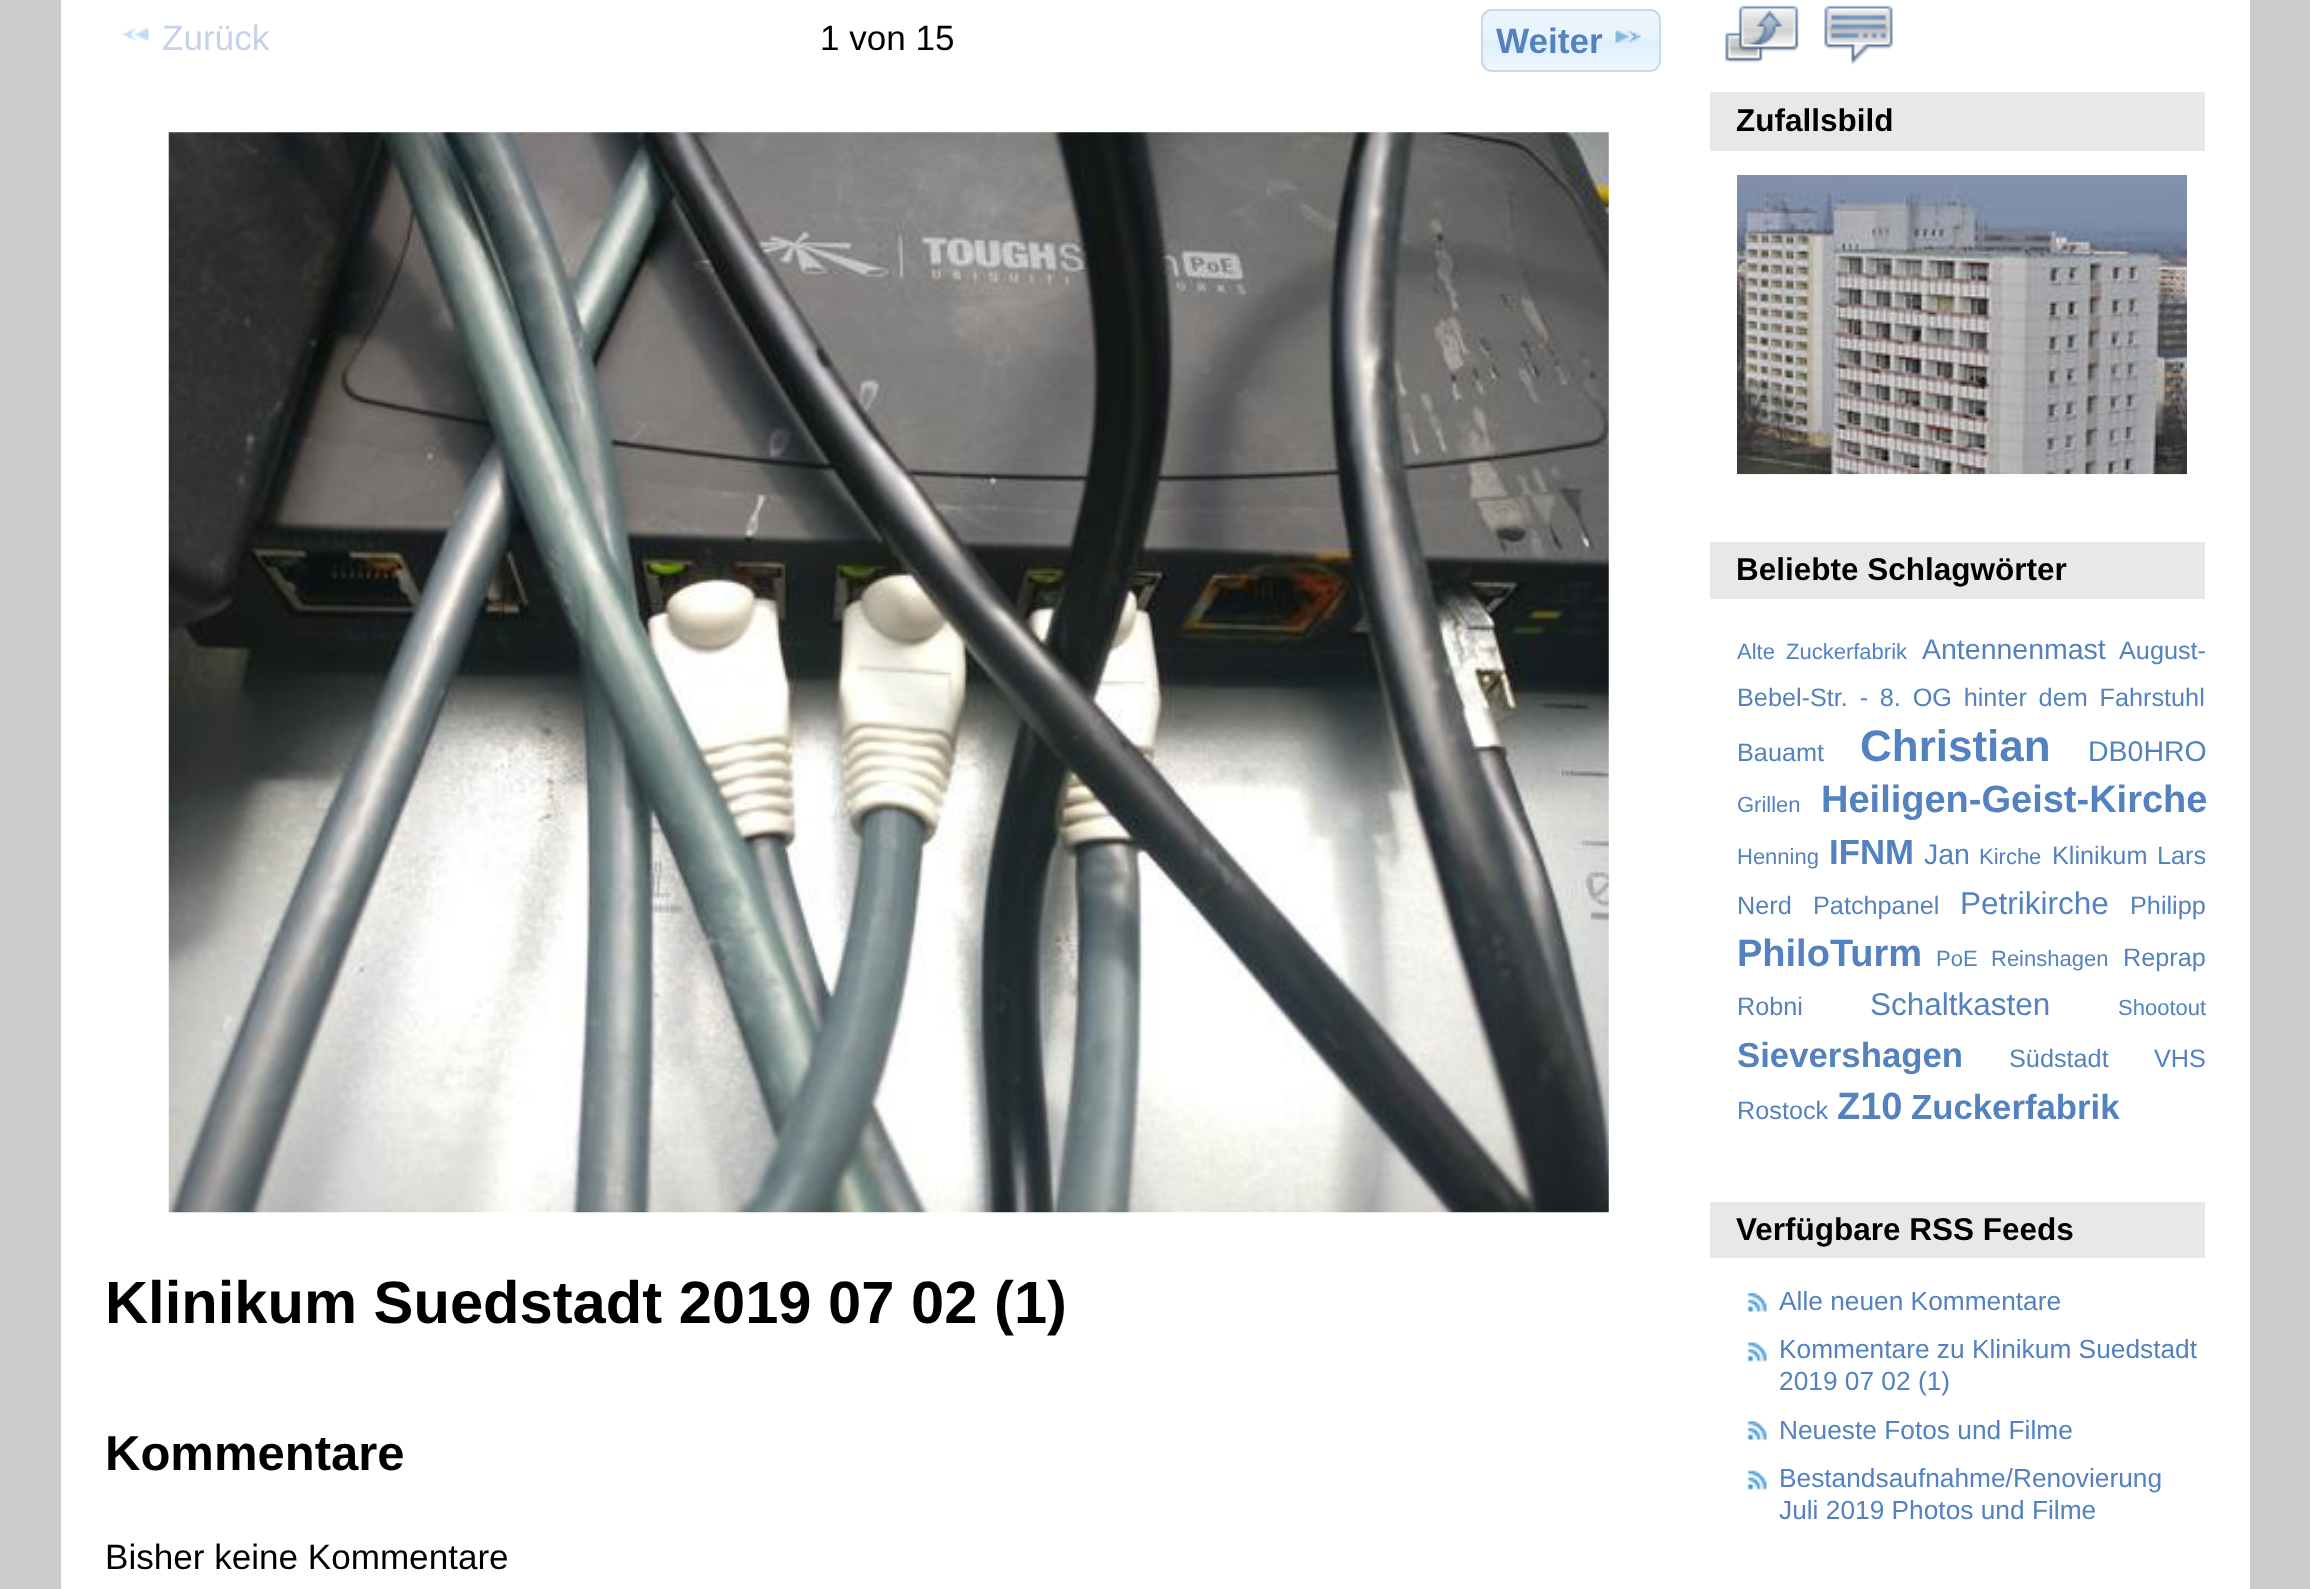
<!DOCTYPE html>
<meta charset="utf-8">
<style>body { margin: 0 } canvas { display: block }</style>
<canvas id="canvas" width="2310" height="1589"></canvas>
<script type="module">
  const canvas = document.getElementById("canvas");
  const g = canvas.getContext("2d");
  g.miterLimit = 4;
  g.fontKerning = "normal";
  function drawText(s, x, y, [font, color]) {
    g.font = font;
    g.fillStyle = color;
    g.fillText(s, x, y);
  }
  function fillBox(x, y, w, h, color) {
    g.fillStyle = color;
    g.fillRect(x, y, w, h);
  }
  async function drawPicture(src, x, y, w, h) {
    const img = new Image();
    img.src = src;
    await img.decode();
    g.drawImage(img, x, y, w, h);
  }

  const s1 = ["35.1px Liberation Sans", "#C3D3E9"];
  const s2 = ["35.1px Liberation Sans", "#000000"];
  const s3 = ["bold 35.1px Liberation Sans", "#5382BF"];
  const s4 = ["bold 59.7px Liberation Sans", "#000000"];
  const s5 = ["bold 49px Liberation Sans", "#000000"];
  const s6 = ["bold 31.5px Liberation Sans", "#000000"];
  const s7 = ["22px Liberation Sans", "#5382BF"];
  const s8 = ["28.5px Liberation Sans", "#5382BF"];
  const s9 = ["25.25px Liberation Sans", "#5382BF"];
  const s10 = ["bold 44px Liberation Sans", "#5382BF"];
  const s11 = ["bold 38px Liberation Sans", "#5382BF"];
  const s12 = ["bold 34.75px Liberation Sans", "#5382BF"];
  const s13 = ["31.5px Liberation Sans", "#5382BF"];
  const s14 = ["26.3px Liberation Sans", "#5382BF"];

  fillBox(0, 0, 2310, 1589, "#CCCCCC");
  fillBox(61, 0, 2189, 1589, "#FFFFFF");
  await drawPicture("pic1.png", 123, 28, 26, 13);
  drawText("Zurück", 162, 50, s1);
  drawText("1 von 15", 820, 50, s2);
  await drawPicture("pic2.png", 1480, 8, 180, 64);
  g.beginPath();
  g.roundRect(1482, 10, 178, 61, 10);
  g.strokeStyle = "#C5DBEC";
  g.lineWidth = 2;
  g.stroke();
  drawText("Weiter", 1496, 53, s3);
  await drawPicture("pic3.png", 1615, 30, 26, 13);
  await drawPicture("pic4.png", 168, 132, 1441, 1081);
  drawText("Klinikum Suedstadt 2019 07 02 (1)", 105, 1323, s4);
  drawText("Kommentare", 105, 1470, s5);
  drawText("Bisher keine Kommentare", 105, 1569, s2);
  await drawPicture("pic5.png", 1725, 5, 74, 58);
  await drawPicture("pic6.png", 1824, 5, 69, 60);
  fillBox(1710, 92, 495, 59, "#E8E8E8");
  drawText("Zufallsbild", 1736, 131, s6);
  await drawPicture("pic7.png", 1737, 175, 450, 300);
  fillBox(1710, 542, 495, 57, "#E8E8E8");
  drawText("Beliebte Schlagwörter", 1736, 580, s6);
  g.wordSpacing = "5px";
  drawText("Alte Zuckerfabrik", 1737, 659, s7);
  g.wordSpacing = "0px";
  drawText("Antennenmast", 1922, 659, s8);
  drawText("August-", 2119, 659, s9);
  g.wordSpacing = "4.75px";
  drawText("Bebel-Str. - 8. OG hinter dem Fahrstuhl", 1737, 706, s9);
  g.wordSpacing = "0px";
  drawText("Bauamt", 1737, 761, s9);
  drawText("Christian", 1860, 761, s10);
  drawText("DB0HRO", 2088, 761, s8);
  drawText("Grillen", 1737, 812, s7);
  drawText("Heiligen-Geist-Kirche", 1821, 812, s11);
  drawText("Henning", 1737, 864, s7);
  drawText("IFNM", 1829, 864, s12);
  drawText("Jan", 1924, 864, s8);
  drawText("Kirche", 1979, 864, s7);
  drawText("Klinikum", 2052, 864, s9);
  drawText("Lars", 2157, 864, s9);
  drawText("Nerd", 1737, 914, s9);
  drawText("Patchpanel", 1813, 914, s9);
  drawText("Petrikirche", 1960, 914, s13);
  drawText("Philipp", 2130, 914, s9);
  drawText("PhiloTurm", 1737, 966, s11);
  drawText("PoE", 1936, 966, s7);
  drawText("Reinshagen", 1991, 966, s7);
  drawText("Reprap", 2123, 966, s9);
  drawText("Robni", 1737, 1015, s9);
  drawText("Schaltkasten", 1870, 1015, s13);
  drawText("Shootout", 2118, 1015, s7);
  drawText("Sievershagen", 1737, 1067, s12);
  drawText("Südstadt", 2009, 1067, s9);
  drawText("VHS", 2154, 1067, s9);
  drawText("Rostock", 1737, 1119, s9);
  drawText("Z10", 1837, 1119, s11);
  drawText("Zuckerfabrik", 1911, 1119, s12);
  fillBox(1710, 1202, 495, 56, "#E8E8E8");
  drawText("Verfügbare RSS Feeds", 1736, 1240, s6);
  await drawPicture("pic8.png", 1747, 1292, 20, 20);
  drawText("Alle neuen Kommentare", 1779, 1310, s14);
  await drawPicture("pic9.png", 1747, 1342, 20, 20);
  drawText("Kommentare zu Klinikum Suedstadt", 1779, 1358, s14);
  drawText("2019 07 02 (1)", 1779, 1390, s14);
  await drawPicture("pic10.png", 1747, 1421, 20, 20);
  drawText("Neueste Fotos und Filme", 1779, 1439, s14);
  await drawPicture("pic11.png", 1747, 1470, 20, 20);
  drawText("Bestandsaufnahme/Renovierung", 1779, 1487, s14);
  drawText("Juli 2019 Photos und Filme", 1779, 1519, s14);
</script>
